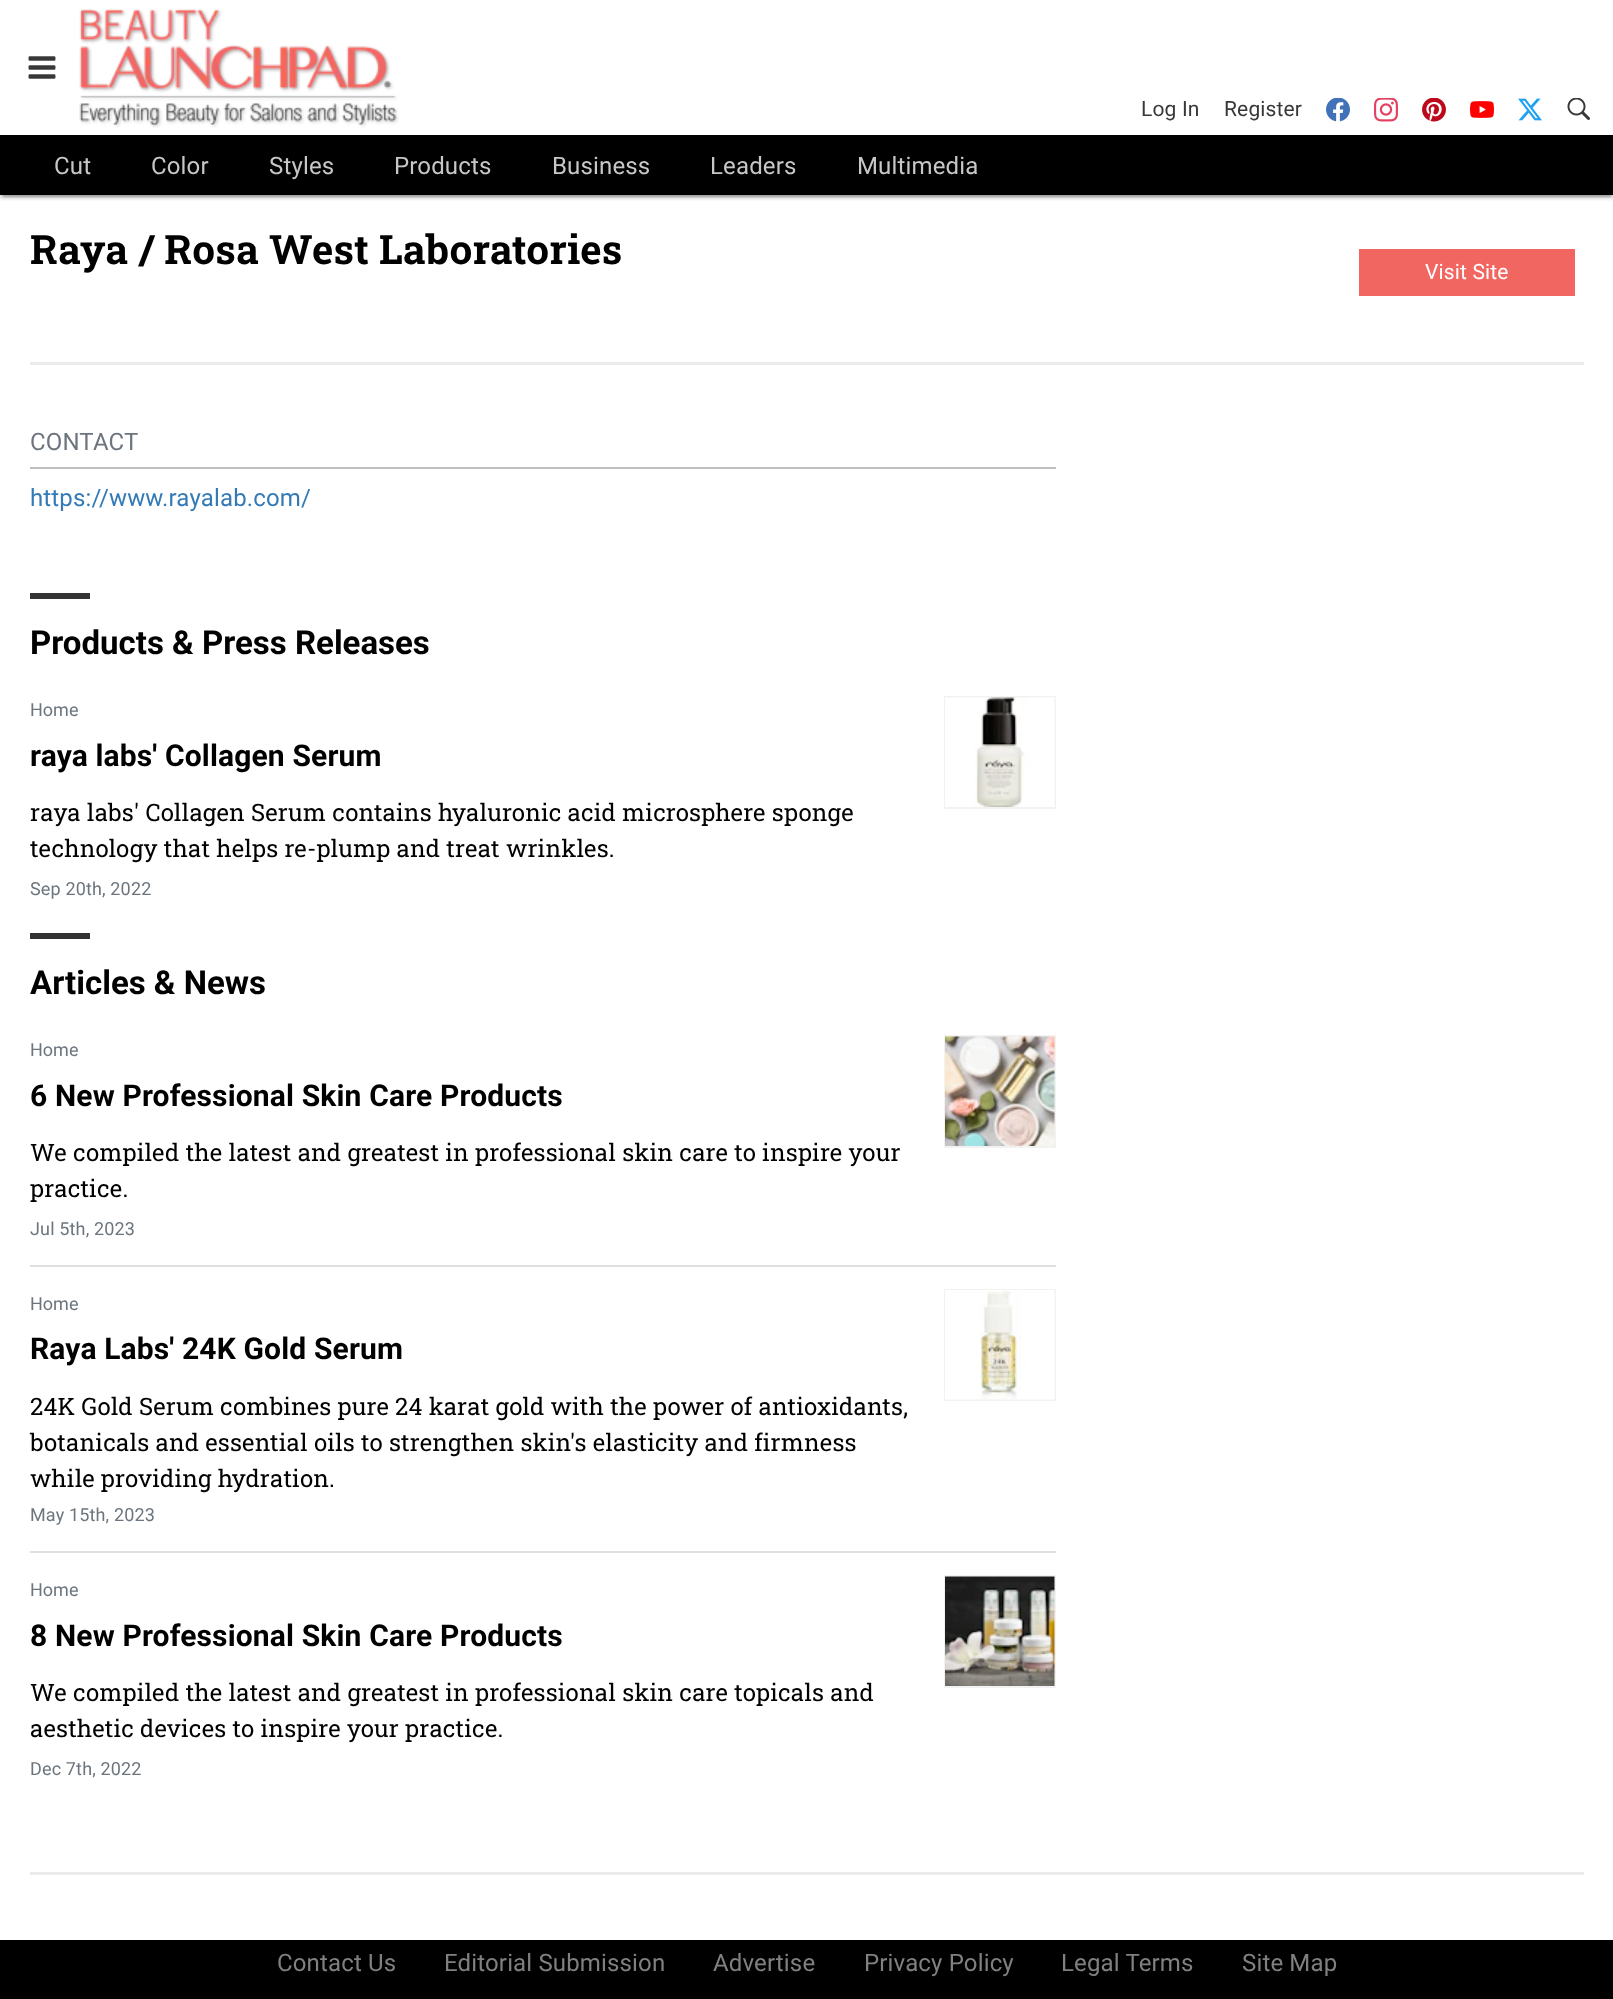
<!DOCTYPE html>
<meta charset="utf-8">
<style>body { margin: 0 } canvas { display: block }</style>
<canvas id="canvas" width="1613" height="1999"></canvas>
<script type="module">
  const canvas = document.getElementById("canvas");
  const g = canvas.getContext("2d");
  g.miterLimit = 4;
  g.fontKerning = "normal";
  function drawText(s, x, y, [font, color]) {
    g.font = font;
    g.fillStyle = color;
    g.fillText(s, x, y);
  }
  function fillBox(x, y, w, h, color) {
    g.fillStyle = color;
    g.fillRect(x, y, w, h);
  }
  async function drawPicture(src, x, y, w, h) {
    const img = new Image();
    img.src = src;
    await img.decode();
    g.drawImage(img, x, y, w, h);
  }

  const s1 = ["21px Roboto", "#383838"];
  const s2 = ["24px Roboto", "#C7C7C7"];
  const s3 = ["bold 40.5px Roboto Slab", "#000000"];
  const s4 = ["21px Roboto", "#FFFFFF"];
  const s5 = ["24px Roboto", "#6C757D"];
  const s6 = ["24px Roboto", "#337AB7"];
  const s7 = ["bold 33px Roboto", "#000000"];
  const s8 = ["18px Roboto", "#6C757D"];
  const s9 = ["bold 30px Roboto", "#000000"];
  const s10 = ["24px Roboto Slab", "#000000"];
  const s11 = ["24px Roboto", "#808080"];

  fillBox(0, 0, 1613, 1999, "#FFFFFF");
  g.save();
  g.beginPath();
  g.rect(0, 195, 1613, 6);
  g.clip();
  g.fillStyle = "rgba(0, 0, 0, 0.12)";
  g.filter = "blur(4px)";
  g.beginPath();
  g.rect(0, 2, 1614, 195);
  g.fill();
  g.filter = "none";
  g.restore();
  g.save();
  g.beginPath();
  g.rect(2, 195, 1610, 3);
  g.clip();
  g.fillStyle = "rgba(0, 0, 0, 0.2)";
  g.filter = "blur(1px)";
  g.beginPath();
  g.rect(3, 8, 1608, 189);
  g.fill();
  g.filter = "none";
  g.restore();
  g.save();
  g.beginPath();
  g.rect(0, 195, 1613, 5);
  g.clip();
  g.fillStyle = "rgba(0, 0, 0, 0.14)";
  g.filter = "blur(1.5px)";
  g.beginPath();
  g.rect(0, 3, 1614, 195);
  g.fill();
  g.filter = "none";
  g.restore();
  await drawPicture("pic1.png", 28, 56, 28, 23);
  await drawPicture("pic2.png", 79, 9, 320, 119);
  g.letterSpacing = "0.15px";
  drawText("Log In", 1141, 116, s1);
  drawText("Register", 1224, 116, s1);
  await drawPicture("pic3.png", 1326, 98, 24, 24);
  await drawPicture("pic4.png", 1374, 98, 24, 24);
  await drawPicture("pic5.png", 1422, 98, 24, 24);
  await drawPicture("pic6.png", 1470, 101, 24, 17);
  await drawPicture("pic7.png", 1518, 98, 24, 23);
  await drawPicture("pic8.png", 1567, 98, 23, 22);
  fillBox(0, 135, 1613, 60, "#000000");
  drawText("Cut", 54, 174, s2);
  drawText("Color", 151, 174, s2);
  drawText("Styles", 269, 174, s2);
  drawText("Products", 394, 174, s2);
  drawText("Business", 552, 174, s2);
  drawText("Leaders", 710, 174, s2);
  drawText("Multimedia", 857, 174, s2);
  fillBox(30, 362, 1554, 3, "#EBEBEB");
  drawText("Raya / Rosa West Laboratories", 30, 264, s3);
  fillBox(1359, 249, 216, 47, "#F26661");
  drawText("Visit Site", 1425, 279, s4);
  fillBox(30, 1872, 1554, 3, "#EBEBEB");
  fillBox(30, 467, 1026, 2, "#BFBFBF");
  drawText("CONTACT", 30, 450, s5);
  drawText("https://www.rayalab.com/", 30, 506, s6);
  fillBox(30, 593, 60, 6, "#333333");
  g.letterSpacing = "0px";
  drawText("Products & Press Releases", 30, 654, s7);
  drawText("Home", 30, 716, s8);
  g.letterSpacing = "0.15px";
  drawText("raya labs' Collagen Serum", 30, 766, s9);
  drawText("raya labs' Collagen Serum contains hyaluronic acid microsphere sponge", 30, 821, s10);
  drawText("technology that helps re-plump and treat wrinkles.", 30, 857, s10);
  drawText("Sep 20th, 2022", 30, 895, s8);
  g.strokeStyle = "#F2F2F2";
  g.lineWidth = 2;
  g.strokeRect(945, 697, 110, 111);
  await drawPicture("pic9.png", 945, 697, 110, 110);
  fillBox(30, 933, 60, 6, "#333333");
  g.letterSpacing = "0px";
  drawText("Articles & News", 30, 994, s7);
  fillBox(30, 1265, 1026, 2, "#DFDFDF");
  drawText("Home", 30, 1056, s8);
  g.letterSpacing = "0.15px";
  drawText("6 New Professional Skin Care Products", 30, 1106, s9);
  drawText("We compiled the latest and greatest in professional skin care to inspire your", 30, 1161, s10);
  drawText("practice.", 30, 1197, s10);
  drawText("Jul 5th, 2023", 30, 1235, s8);
  g.strokeRect(945, 1036, 110, 111);
  await drawPicture("pic10.png", 945, 1036, 110, 110);
  fillBox(30, 1551, 1026, 2, "#DFDFDF");
  g.letterSpacing = "0px";
  drawText("Home", 30, 1310, s8);
  g.letterSpacing = "0.15px";
  drawText("Raya Labs' 24K Gold Serum", 30, 1359, s9);
  drawText("24K Gold Serum combines pure 24 karat gold with the power of antioxidants,", 30, 1415, s10);
  drawText("botanicals and essential oils to strengthen skin's elasticity and firmness", 30, 1451, s10);
  drawText("while providing hydration.", 30, 1487, s10);
  drawText("May 15th, 2023", 30, 1521, s8);
  g.strokeRect(945, 1290, 110, 110);
  await drawPicture("pic11.png", 945, 1290, 110, 110);
  g.letterSpacing = "0px";
  drawText("Home", 30, 1596, s8);
  g.letterSpacing = "0.15px";
  drawText("8 New Professional Skin Care Products", 30, 1646, s9);
  drawText("We compiled the latest and greatest in professional skin care topicals and", 30, 1701, s10);
  drawText("aesthetic devices to inspire your practice.", 30, 1737, s10);
  drawText("Dec 7th, 2022", 30, 1775, s8);
  g.strokeRect(945, 1576, 110, 111);
  await drawPicture("pic12.png", 945, 1576, 110, 110);
  fillBox(0, 1940, 1613, 59, "#000000");
  drawText("Contact Us", 277, 1971, s11);
  drawText("Editorial Submission", 444, 1971, s11);
  drawText("Advertise", 713, 1971, s11);
  drawText("Privacy Policy", 864, 1971, s11);
  drawText("Legal Terms", 1061, 1971, s11);
  drawText("Site Map", 1242, 1971, s11);
</script>
